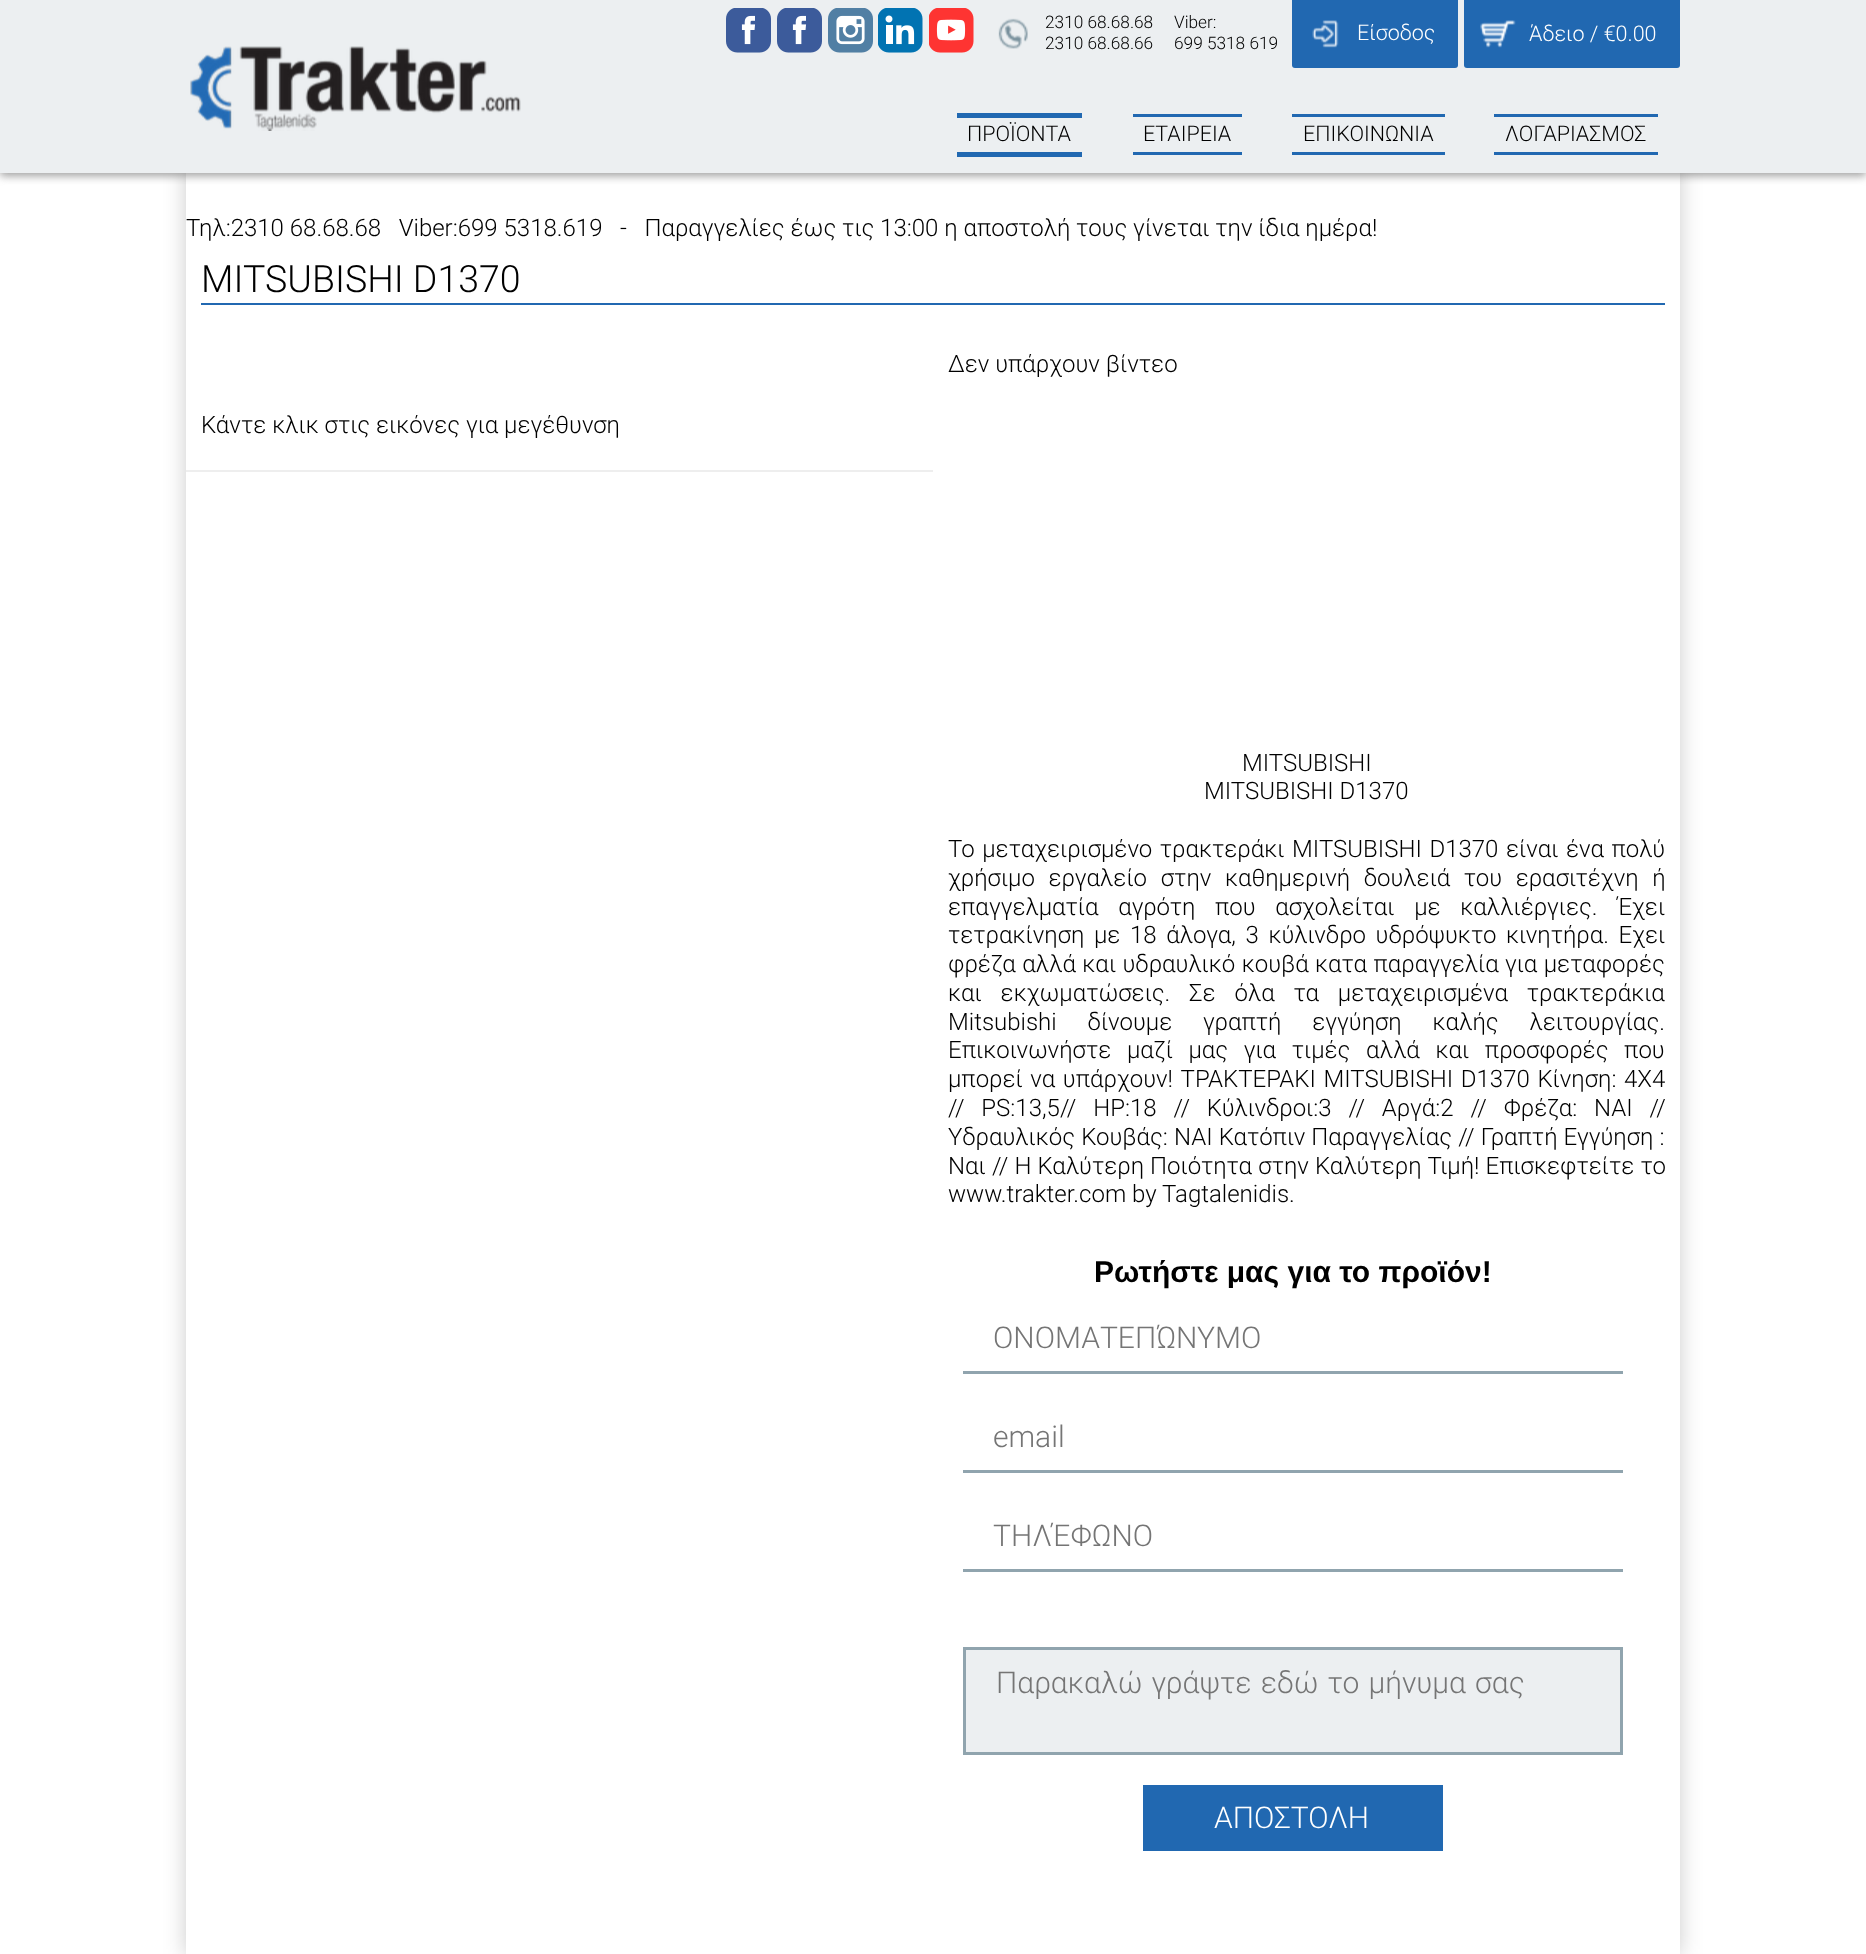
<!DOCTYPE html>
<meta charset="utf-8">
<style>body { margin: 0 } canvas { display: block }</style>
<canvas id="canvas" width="1866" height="1954"></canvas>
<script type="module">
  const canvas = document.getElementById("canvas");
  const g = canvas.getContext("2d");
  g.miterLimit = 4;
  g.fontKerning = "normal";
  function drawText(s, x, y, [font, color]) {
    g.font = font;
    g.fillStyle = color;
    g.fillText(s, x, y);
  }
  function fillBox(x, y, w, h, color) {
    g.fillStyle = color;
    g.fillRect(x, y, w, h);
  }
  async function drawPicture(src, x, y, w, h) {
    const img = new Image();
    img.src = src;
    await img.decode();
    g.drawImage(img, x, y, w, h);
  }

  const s1 = ["300 17.25px Roboto", "#000000"];
  const s2 = ["300 21.5px Roboto", "#FFFFFF"];
  const s3 = ["300 21.5px Roboto", "#000000"];
  const s4 = ["300 24px Roboto", "#000000"];
  const s5 = ["300 37.5px Roboto", "#000000"];
  const s6 = ["bold 30px Liberation Sans", "#000000"];
  const s7 = ["300 30px Roboto", "#757575"];
  const s8 = ["300 30px Roboto", "#FFFFFF"];

  fillBox(0, 0, 1866, 1954, "#FFFFFF");
  g.save();
  g.beginPath();
  g.moveTo(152, 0);
  g.lineTo(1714, 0);
  g.lineTo(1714, 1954);
  g.lineTo(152, 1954);
  g.closePath();
  g.moveTo(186, 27);
  g.lineTo(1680, 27);
  g.lineTo(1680, 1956);
  g.lineTo(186, 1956);
  g.closePath();
  g.clip("evenodd");
  g.fillStyle = "rgba(0, 0, 0, 0.2)";
  g.filter = "blur(11px)";
  g.beginPath();
  g.rect(186, 27, 1494, 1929);
  g.fill();
  g.filter = "none";
  g.restore();
  g.fillStyle = "rgba(128, 128, 128, 0.75)";
  g.filter = "blur(4px)";
  g.beginPath();
  g.rect(0, 3, 1866, 173);
  g.fill();
  g.filter = "none";
  fillBox(0, 0, 1866, 173, "#ECEFF1");
  await drawPicture("pic1.png", 190, 46, 331, 85);
  await drawPicture("pic2.png", 726, 8, 45, 45);
  await drawPicture("pic2.png", 777, 8, 45, 45);
  await drawPicture("pic3.png", 828, 8, 45, 45);
  await drawPicture("pic4.png", 878, 8, 45, 45);
  await drawPicture("pic5.png", 929, 8, 45, 45);
  await drawPicture("pic6.png", 998, 18, 30, 31);
  drawText("2310 68.68.68", 1045, 28, s1);
  drawText("2310 68.68.66", 1045, 49, s1);
  drawText("Viber:", 1174, 28, s1);
  drawText("699 5318 619", 1174, 49, s1);
  g.fillStyle = "#2168B1";
  g.beginPath();
  g.roundRect(1292, 0, 166, 68, [0, 0, 3, 3]);
  g.fill();
  await drawPicture("pic7.png", 1312, 20, 27, 28);
  drawText("Είσοδος", 1357, 40, s2);
  g.fillStyle = "#2168B1";
  g.beginPath();
  g.roundRect(1464, 0, 216, 68, [0, 0, 3, 3]);
  g.fill();
  await drawPicture("pic8.png", 1480, 20, 36, 28);
  drawText("Άδειο / €0.00", 1529, 41, s2);
  fillBox(957, 113, 125, 5, "#2168B1");
  fillBox(957, 152, 125, 5, "#2168B1");
  drawText("ΠΡΟΪΟΝΤΑ", 967, 141, s3);
  fillBox(1133, 114, 109, 3, "#2168B1");
  fillBox(1133, 152, 109, 3, "#2168B1");
  drawText("ΕΤΑΙΡΕΙΑ", 1143, 141, s3);
  fillBox(1292, 114, 153, 3, "#2168B1");
  fillBox(1292, 152, 153, 3, "#2168B1");
  drawText("ΕΠΙΚΟΙΝΩΝΙΑ", 1303, 141, s3);
  fillBox(1494, 114, 164, 3, "#2168B1");
  fillBox(1494, 152, 164, 3, "#2168B1");
  drawText("ΛΟΓΑΡΙΑΣΜΟΣ", 1505, 141, s3);
  drawText("Τηλ:2310 68.68.68   Viber:699 5318.619   -   Παραγγελίες έως τις 13:00 η αποστολή τους γίνεται την ίδια ημέρα!", 186, 236, s4);
  fillBox(201, 303, 1464, 2, "#2168B1");
  drawText("MITSUBISHI D1370", 201, 292, s5);
  drawText("Κάντε κλικ στις εικόνες για μεγέθυνση", 201, 433, s4);
  fillBox(186, 470, 747, 2, "#EEEEEE");
  drawText("Δεν υπάρχουν βίντεο", 948, 372, s4);
  drawText("MITSUBISHI", 1242, 771, s4);
  drawText("MITSUBISHI D1370", 1204, 799, s4);
  g.wordSpacing = "1.75px";
  drawText("Το μεταχειρισμένο τρακτεράκι MITSUBISHI D1370 είναι ένα πολύ", 948, 857, s4);
  g.wordSpacing = "7.75px";
  drawText("χρήσιμο εργαλείο στην καθημερινή δουλειά του ερασιτέχνη ή", 948, 886, s4);
  g.wordSpacing = "13.75px";
  drawText("επαγγελματία αγρότη που ασχολείται με καλλιέργιες. Έχει", 948, 915, s4);
  g.wordSpacing = "3.75px";
  drawText("τετρακίνηση με 18 άλογα, 3 κύλινδρο υδρόψυκτο κινητήρα. Eχει", 948, 943, s4);
  g.wordSpacing = "0.5px";
  drawText("φρέζα αλλά και υδραυλικό κουβά κατα παραγγελία για μεταφορές", 948, 972, s4);
  g.wordSpacing = "13px";
  drawText("και εκχωματώσεις. Σε όλα τα μεταχειρισμένα τρακτεράκια", 948, 1001, s4);
  g.wordSpacing = "25px";
  drawText("Mitsubishi δίνουμε γραπτή εγγύηση καλής λειτουργίας.", 948, 1030, s4);
  g.wordSpacing = "9.75px";
  drawText("Επικοινωνήστε μαζί μας για τιμές αλλά και προσφορές που", 948, 1058, s4);
  g.wordSpacing = "1.75px";
  drawText("μπορεί να υπάρχουν! ΤΡΑΚΤΕΡΑΚΙ MITSUBISHI D1370 Κίνηση: 4X4", 948, 1087, s4);
  g.wordSpacing = "11px";
  drawText("// PS:13,5// HP:18 // Κύλινδροι:3 // Αργά:2 // Φρέζα: ΝAI //", 948, 1116, s4);
  g.wordSpacing = "0.25px";
  drawText("Υδραυλικός Κουβάς: ΝΑΙ Κατόπιν Παραγγελίας // Γραπτή Εγγύηση :", 948, 1145, s4);
  drawText("Ναι // Η Καλύτερη Ποιότητα στην Καλύτερη Τιμή! Επισκεφτείτε το", 948, 1174, s4);
  g.wordSpacing = "0px";
  drawText("www.trakter.com by Tagtalenidis.", 948, 1202, s4);
  drawText("Ρωτήστε μας για το προϊόν!", 1094, 1282, s6);
  fillBox(963, 1371, 660, 3, "#90A4AE");
  drawText("ΟΝΟΜΑΤΕΠΏΝΥΜΟ", 993, 1348, s7);
  fillBox(963, 1470, 660, 3, "#90A4AE");
  drawText("email", 993, 1447, s7);
  fillBox(963, 1569, 660, 3, "#90A4AE");
  drawText("ΤΗΛΈΦΩΝΟ", 993, 1546, s7);
  g.fillStyle = "#ECEFF1";
  g.beginPath();
  g.rect(964.5, 1648.5, 657, 105);
  g.fill();
  g.strokeStyle = "#90A4AE";
  g.lineWidth = 3;
  g.stroke();
  g.wordSpacing = "1.75px";
  drawText("Παρακαλώ γράψτε εδώ το μήνυμα σας", 996, 1693, s7);
  fillBox(1143, 1785, 300, 66, "#2168B1");
  g.wordSpacing = "0px";
  drawText("ΑΠΟΣΤΟΛΗ", 1214, 1828, s8);
</script>
